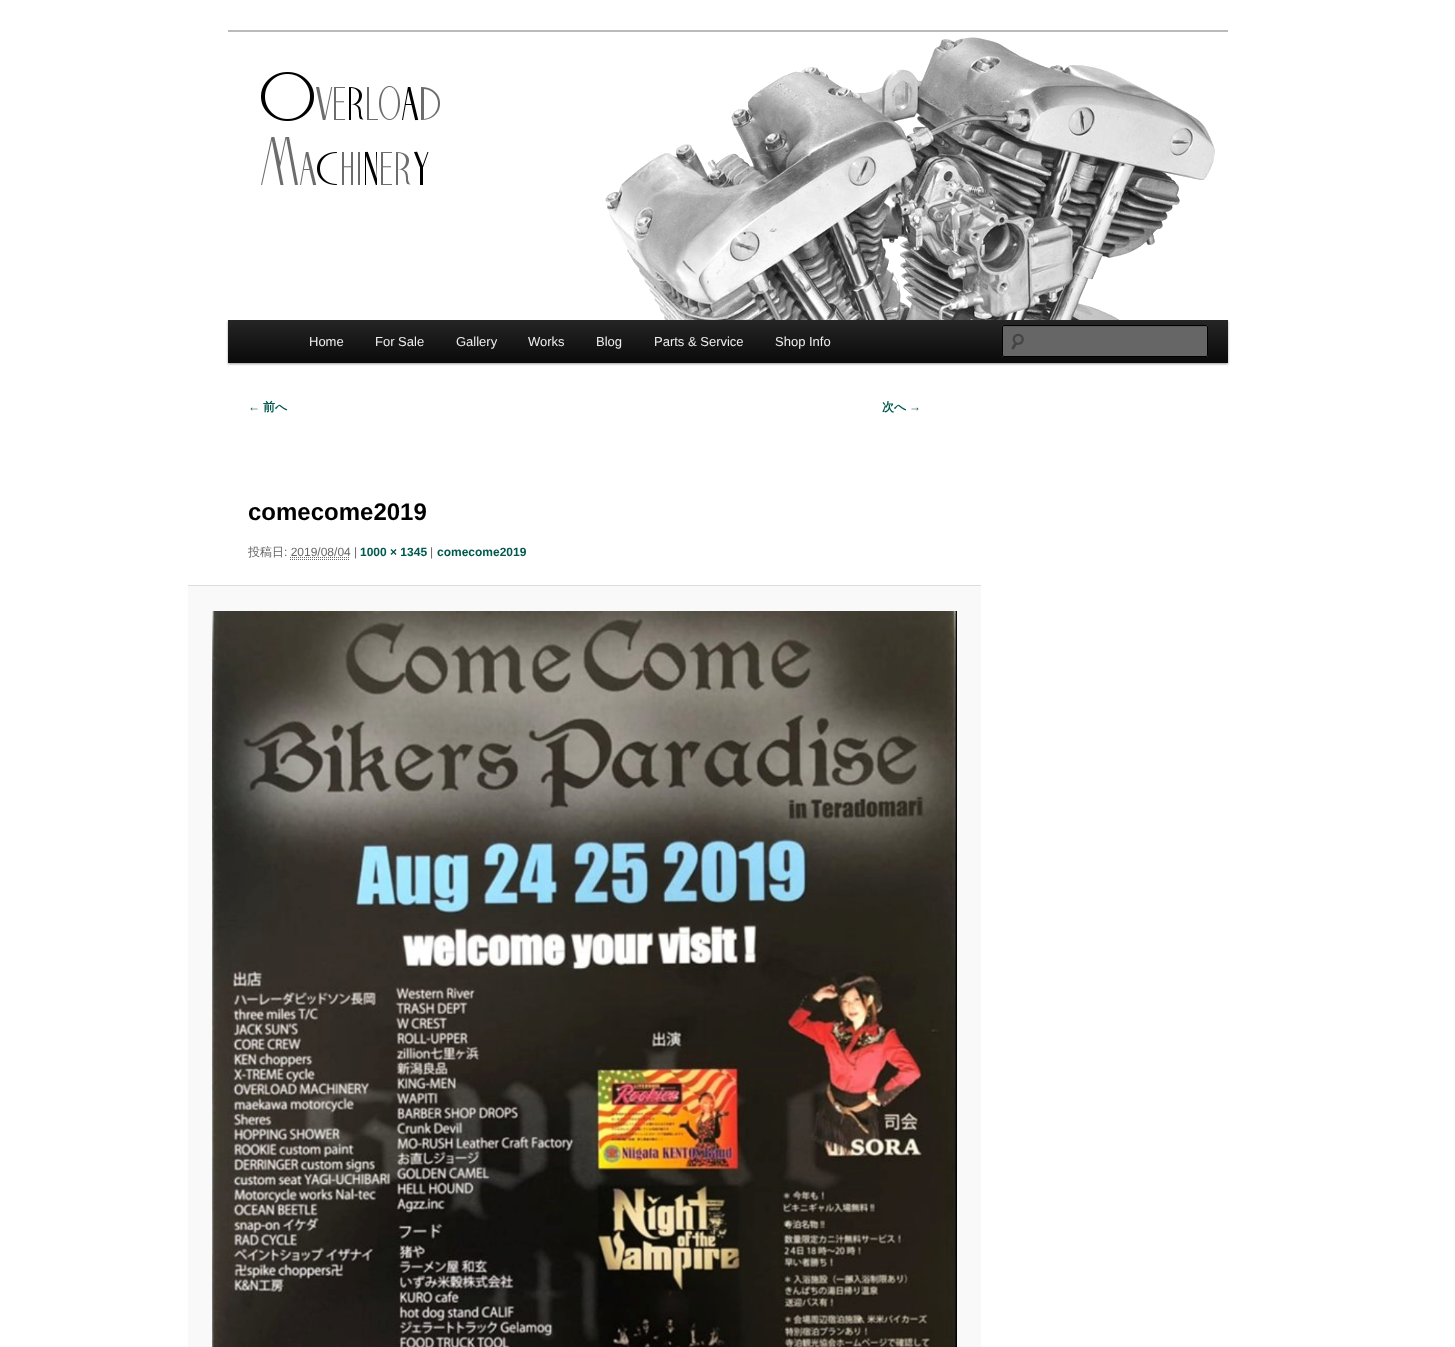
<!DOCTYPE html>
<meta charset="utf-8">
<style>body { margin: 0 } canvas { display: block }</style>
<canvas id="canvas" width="1455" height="1347"></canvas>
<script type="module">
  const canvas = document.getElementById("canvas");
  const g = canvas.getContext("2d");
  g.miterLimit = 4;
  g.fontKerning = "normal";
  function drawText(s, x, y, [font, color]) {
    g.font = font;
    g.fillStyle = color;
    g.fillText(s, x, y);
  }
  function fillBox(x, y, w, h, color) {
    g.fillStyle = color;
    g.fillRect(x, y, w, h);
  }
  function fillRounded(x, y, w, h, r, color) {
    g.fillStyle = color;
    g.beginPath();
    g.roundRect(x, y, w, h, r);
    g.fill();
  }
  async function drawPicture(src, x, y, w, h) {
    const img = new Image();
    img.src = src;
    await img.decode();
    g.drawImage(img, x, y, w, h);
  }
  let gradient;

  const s1 = ["13px Liberation Sans", "#EEEEEE"];
  const s2 = ["bold 12px Liberation Sans", "#00594E"];
  const s3 = ["bold 12px WenQuanYi Zen Hei", "#00594E"];
  const s4 = ["bold 24px Liberation Sans", "#000000"];
  const s5 = ["500 12px WenQuanYi Zen Hei", "#666666"];
  const s6 = ["12px Liberation Sans", "#666666"];

  fillBox(0, 0, 1455, 1347, "#FFFFFF");
  fillBox(228, 30, 1000, 2, "#BBBBBB");
  g.fillStyle = "rgba(0, 0, 0, 0.4)";
  g.filter = "blur(1px)";
  g.beginPath();
  g.rect(228, 321, 1000, 43);
  g.fill();
  g.filter = "none";
  await drawPicture("pic1.png", 228, 37, 1000, 283);
  gradient = g.createLinearGradient(728, 320, 728, 363);
  gradient.addColorStop(0, "#252525");
  gradient.addColorStop(1, "#0A0A0A");
  g.fillStyle = gradient;
  g.fillRect(228, 320, 1000, 43);
  drawText("Home", 309, 346, s1);
  drawText("For Sale", 375, 346, s1);
  drawText("Gallery", 456, 346, s1);
  drawText("Works", 528, 346, s1);
  drawText("Blog", 596, 346, s1);
  drawText("Parts & Service", 654, 346, s1);
  drawText("Shop Info", 775, 346, s1);
  fillRounded(1002, 325, 206, 32, 2, "#666666");
  await drawPicture("pic2.png", 1011, 333, 13, 17);
  g.fillStyle = "#5C5C5C";
  g.beginPath();
  g.moveTo(1004, 327);
  g.lineTo(1207, 327);
  g.lineTo(1207, 328);
  g.lineTo(1207, 326);
  g.lineTo(1206, 326);
  g.lineTo(1004, 326);
  g.bezierCurveTo(1003, 326, 1003, 327, 1003, 328);
  g.bezierCurveTo(1003, 327, 1003, 327, 1004, 327);
  g.closePath();
  g.fill();
  g.beginPath();
  g.roundRect(1002.5, 325.5, 205, 31, 1.5);
  g.strokeStyle = "#000000";
  g.stroke();
  drawText("←", 248, 411, s2);
  drawText("前へ", 263, 411, s3);
  drawText("次へ", 882, 411, s3);
  drawText("→", 909, 411, s2);
  drawText("comecome2019", 248, 520, s4);
  drawText("投稿日", 248, 556, s5);
  drawText(": 2019/08/04 |", 284, 556, s6);
  drawText("1000 × 1345", 360, 556, s2);
  drawText("|", 430, 556, s6);
  drawText("comecome2019", 437, 556, s2);
  g.beginPath();
  g.moveTo(290, 559.5);
  g.lineTo(350, 559.5);
  g.moveTo(290, 557.5);
  g.lineTo(350, 557.5);
  g.strokeStyle = "#666666";
  g.setLineDash([1, 1]);
  g.stroke();
  fillBox(188, 586, 793, 761, "#F9F9F9");
  fillBox(188, 585, 793, 1, "#DDDDDD");
  await drawPicture("pic3.png", 212, 611, 745, 736);
</script>
